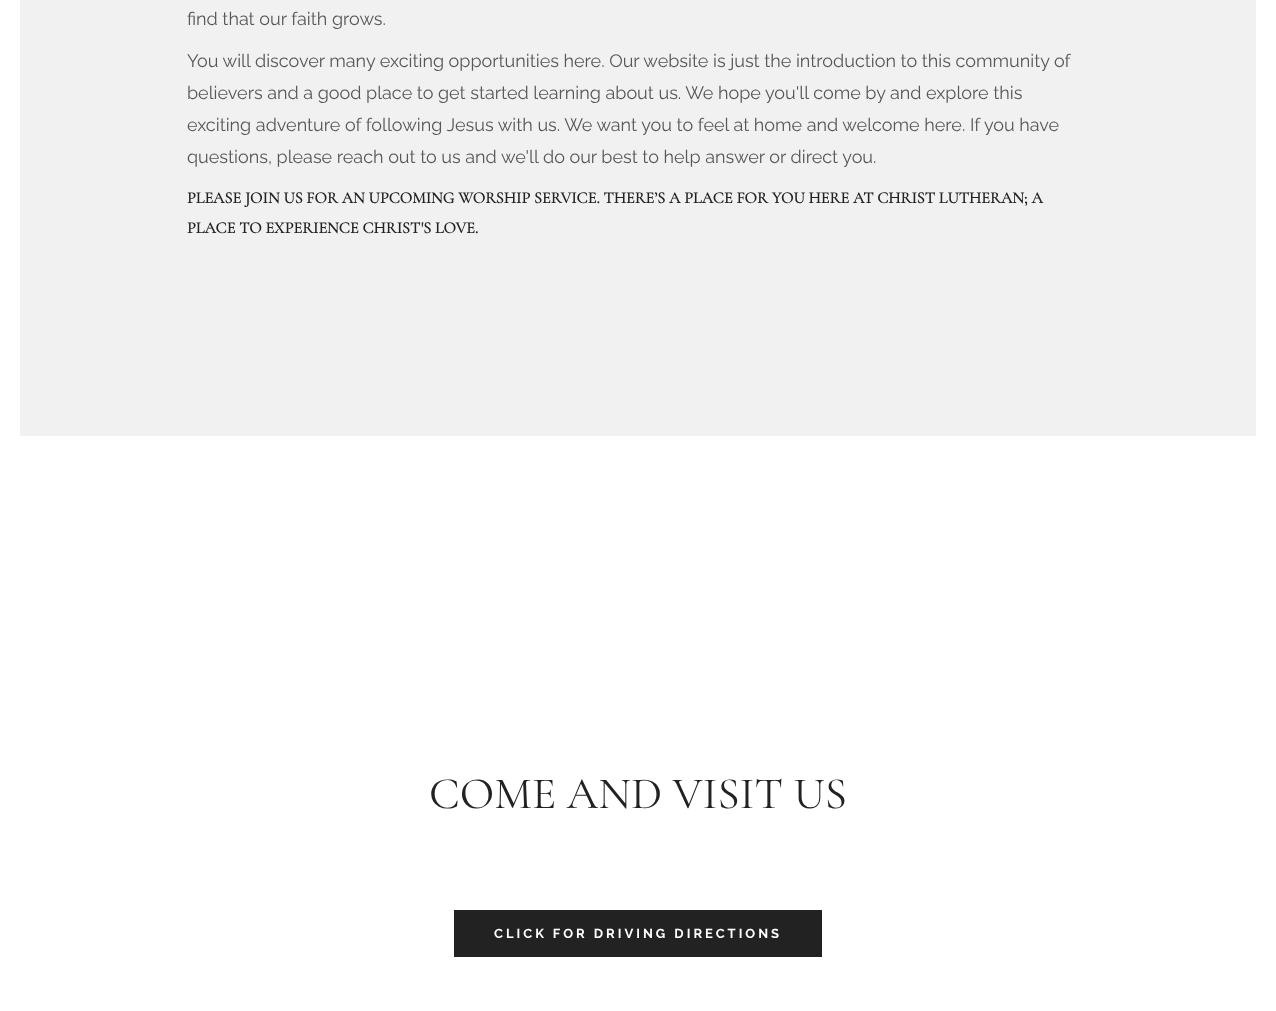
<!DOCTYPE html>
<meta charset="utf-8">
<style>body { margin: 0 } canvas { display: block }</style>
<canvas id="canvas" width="1276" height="1011"></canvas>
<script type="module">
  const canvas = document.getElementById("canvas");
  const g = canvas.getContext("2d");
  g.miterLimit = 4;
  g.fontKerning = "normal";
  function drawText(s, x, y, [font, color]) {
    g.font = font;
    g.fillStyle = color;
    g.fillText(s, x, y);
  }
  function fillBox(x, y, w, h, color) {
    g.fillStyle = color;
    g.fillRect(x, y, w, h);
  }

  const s1 = ["18px Raleway", "#575757"];
  const s2 = ["bold 16.2px Cormorant Garamond", "#222222"];
  const s3 = ["300 45px Cormorant Garamond", "#222222"];
  const s4 = ["bold 13px Raleway", "#FFFFFF"];

  fillBox(0, 0, 1276, 1011, "#FFFFFF");
  fillBox(20, 0, 1236, 436, "#F1F1F1");
  drawText("find that our faith grows.", 187, 25, s1);
  drawText("You will discover many exciting opportunities here. Our website is just the introduction to this community of", 187, 67, s1);
  drawText("believers and a good place to get started learning about us. We hope you'll come by and explore this", 187, 99, s1);
  drawText("exciting adventure of following Jesus with us. We want you to feel at home and welcome here. If you have", 187, 131, s1);
  drawText("questions, please reach out to us and we'll do our best to help answer or direct you.", 187, 163, s1);
  drawText("PLEASE JOIN US FOR AN UPCOMING WORSHIP SERVICE. THERE’S A PLACE FOR YOU HERE AT CHRIST LUTHERAN; A", 187, 203, s2);
  drawText("PLACE TO EXPERIENCE CHRIST'S LOVE.", 187, 233, s2);
  drawText("COME AND VISIT US", 429, 808, s3);
  fillBox(454, 910, 368, 47, "#222222");
  g.letterSpacing = "3px";
  drawText("CLICK FOR DRIVING DIRECTIONS", 494, 938, s4);
</script>
